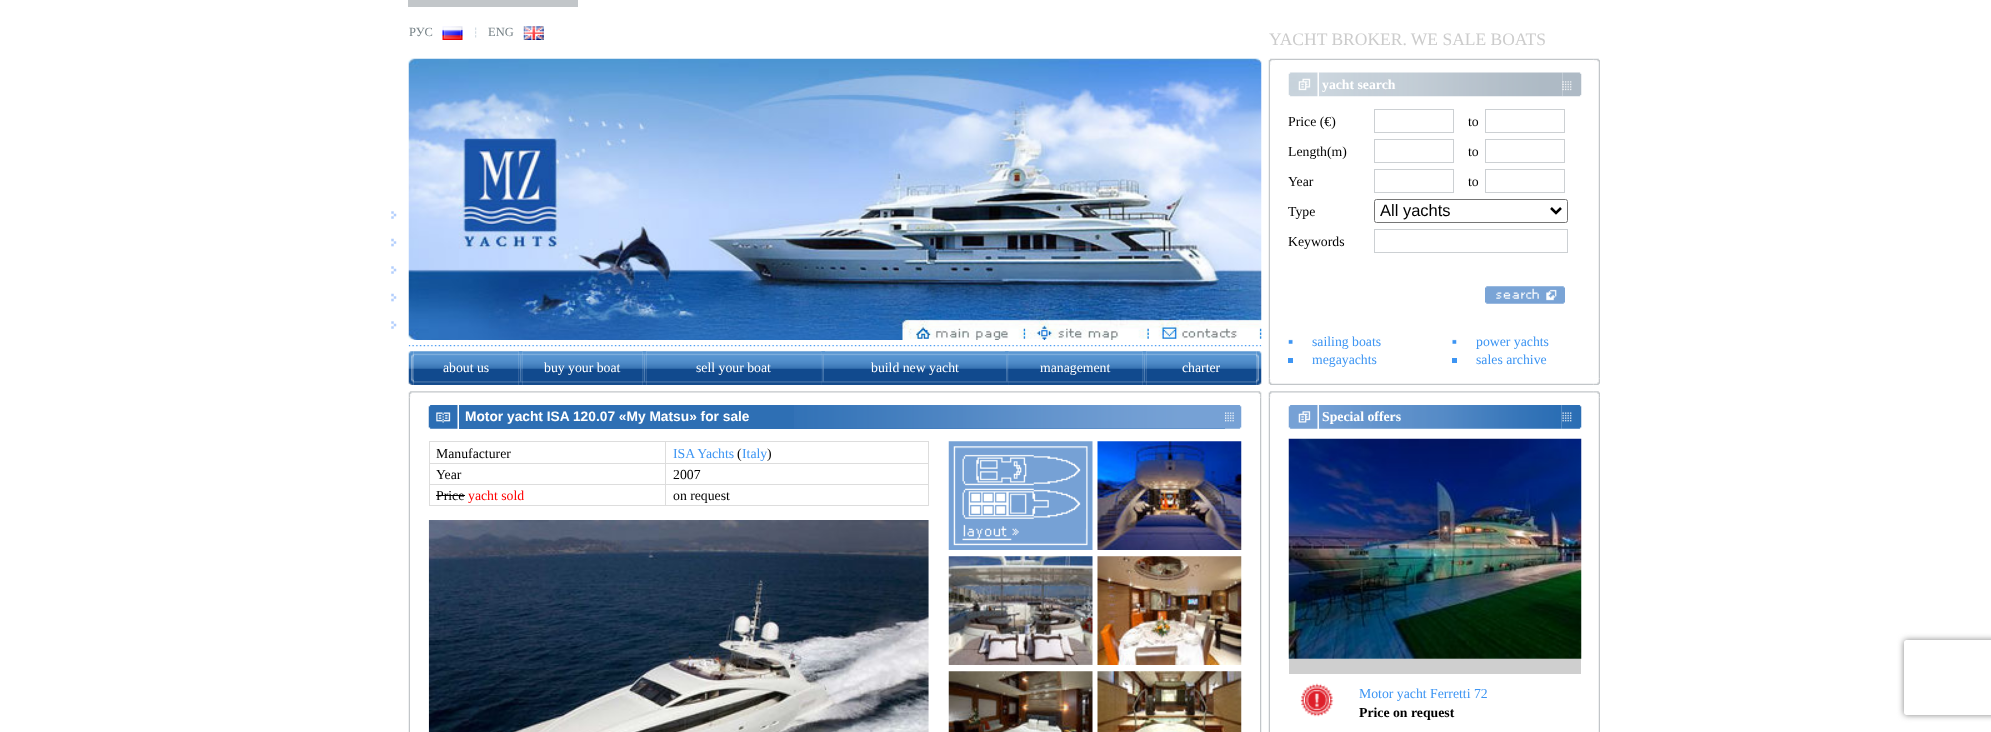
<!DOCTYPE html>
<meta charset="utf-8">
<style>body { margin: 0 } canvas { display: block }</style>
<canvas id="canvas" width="1991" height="732"></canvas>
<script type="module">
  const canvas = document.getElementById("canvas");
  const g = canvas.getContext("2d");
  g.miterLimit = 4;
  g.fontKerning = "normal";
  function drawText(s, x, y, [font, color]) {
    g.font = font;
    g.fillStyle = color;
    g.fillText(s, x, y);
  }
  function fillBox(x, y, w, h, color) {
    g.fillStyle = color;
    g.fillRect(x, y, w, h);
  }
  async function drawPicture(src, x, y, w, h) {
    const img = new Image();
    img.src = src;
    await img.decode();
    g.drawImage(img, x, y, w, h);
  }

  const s1 = ["12.5px Liberation Serif", "#768287"];
  const s2 = ["17.5px Liberation Serif", "#CCCCCC"];
  const s3 = ["bold 13.75px Liberation Serif", "#FFFFFF"];
  const s4 = ["13.75px Liberation Serif", "#000000"];
  const s5 = ["16.5px Liberation Sans", "#000000"];
  const s6 = ["13.75px Liberation Serif", "#3D95F3"];
  const s7 = ["13.75px Liberation Serif", "#FFFFFF"];
  const s8 = ["bold 13.75px Liberation Sans", "#FFFFFF"];
  const s9 = ["13.75px Liberation Serif", "#FF0000"];
  const s10 = ["bold 13.75px Liberation Serif", "#000000"];

  fillBox(0, 0, 1991, 732, "#FFFFFF");
  fillBox(408, 0, 170, 7, "#C2C6C9");
  drawText("РУС", 409, 36, s1);
  await drawPicture("pic1.png", 442, 26, 21, 14);
  await drawPicture("pic2.png", 475, 27, 2, 11);
  drawText("ENG", 488, 36, s1);
  await drawPicture("pic3.png", 523, 26, 21, 14);
  drawText("YACHT BROKER. WE SALE BOATS", 1269, 45, s2);
  await drawPicture("pic4.png", 408, 345, 854, 2);
  await drawPicture("pic5.png", 391, 211, 6, 118);
  await drawPicture("pic6.png", 408, 58, 854, 282);
  await drawPicture("pic7.png", 1268, 58, 7, 7);
  await drawPicture("pic8.png", 1275, 58, 319, 2);
  await drawPicture("pic9.png", 1593, 58, 7, 7);
  await drawPicture("pic10.png", 1268, 65, 2, 314);
  await drawPicture("pic12.png", 1318, 72, 245, 25);
  await drawPicture("pic11.png", 1288, 72, 31, 25);
  drawText("yacht search", 1322, 89, s3);
  await drawPicture("pic13.png", 1562, 72, 20, 25);
  drawText("Price (€)", 1288, 126, s4);
  g.strokeStyle = "#CCD0D3";
  g.strokeRect(1374.5, 109.5, 79, 23);
  drawText("to", 1468, 126, s4);
  g.strokeRect(1485.5, 109.5, 79, 23);
  drawText("Length(m)", 1288, 156, s4);
  g.strokeRect(1374.5, 139.5, 79, 23);
  drawText("to", 1468, 156, s4);
  g.strokeRect(1485.5, 139.5, 79, 23);
  drawText("Year", 1288, 186, s4);
  g.strokeRect(1374.5, 169.5, 79, 23);
  drawText("to", 1468, 186, s4);
  g.strokeRect(1485.5, 169.5, 79, 23);
  drawText("Type", 1288, 216, s4);
  g.beginPath();
  g.roundRect(1374.5, 199.5, 193, 23, 2);
  g.strokeStyle = "#767676";
  g.stroke();
  g.beginPath();
  g.moveTo(1551, 208);
  g.lineTo(1556, 213);
  g.lineTo(1561, 208);
  g.strokeStyle = "#000000";
  g.lineWidth = 2.5;
  g.stroke();
  drawText("All yachts", 1380, 216, s5);
  drawText("Keywords", 1288, 246, s4);
  g.strokeStyle = "#CCD0D3";
  g.lineWidth = 1;
  g.strokeRect(1374.5, 229.5, 193, 23);
  await drawPicture("pic14.png", 1485, 286, 80, 18);
  await drawPicture("pic15.png", 1288, 339, 5, 5);
  drawText("sailing boats", 1312, 346, s6);
  await drawPicture("pic16.png", 1452, 339, 5, 5);
  drawText("power yachts", 1476, 346, s6);
  fillBox(1288, 358, 5, 5, "#3D95F3");
  drawText("megayachts", 1312, 364, s6);
  fillBox(1452, 358, 5, 5, "#3D95F3");
  drawText("sales archive", 1476, 364, s6);
  await drawPicture("pic10.png", 1598, 65, 2, 314);
  await drawPicture("pic17.png", 1268, 379, 7, 6);
  await drawPicture("pic8.png", 1275, 383, 319, 2);
  await drawPicture("pic18.png", 1594, 379, 6, 6);
  await drawPicture("pic20.png", 413, 351, 106, 34);
  await drawPicture("pic19.png", 408, 351, 6, 34);
  drawText("about us", 443, 372, s7);
  await drawPicture("pic21.png", 518, 351, 5, 34);
  await drawPicture("pic23.png", 522, 351, 121, 34);
  await drawPicture("pic22.png", 518, 351, 5, 34);
  drawText("buy your boat", 544, 372, s7);
  await drawPicture("pic24.png", 642, 351, 5, 34);
  await drawPicture("pic26.png", 646, 351, 176, 34);
  await drawPicture("pic25.png", 642, 351, 5, 34);
  drawText("sell your boat", 696, 372, s7);
  await drawPicture("pic27.png", 821, 351, 4, 34);
  await drawPicture("pic28.png", 821, 351, 4, 34);
  await drawPicture("pic29.png", 825, 351, 180, 34);
  drawText("build new yacht", 871, 372, s7);
  await drawPicture("pic30.png", 1005, 351, 4, 34);
  await drawPicture("pic32.png", 1008, 351, 135, 34);
  await drawPicture("pic31.png", 1005, 351, 4, 34);
  drawText("management", 1040, 372, s7);
  await drawPicture("pic24.png", 1142, 351, 5, 34);
  await drawPicture("pic33.png", 1146, 351, 111, 34);
  await drawPicture("pic25.png", 1142, 351, 5, 34);
  drawText("charter", 1182, 372, s7);
  await drawPicture("pic34.png", 1256, 351, 6, 34);
  await drawPicture("pic38.png", 408, 397, 2, 335);
  await drawPicture("pic35.png", 408, 391, 7, 7);
  await drawPicture("pic36.png", 415, 391, 840, 2);
  await drawPicture("pic49.png", 1260, 397, 2, 335);
  await drawPicture("pic37.png", 1255, 391, 7, 7);
  await drawPicture("pic39.png", 428, 405, 30, 24);
  fillBox(459, 405, 766, 24, "#2E6FB4");
  await drawPicture("pic40.png", 794, 405, 431, 24);
  drawText("Motor yacht ISA 120.07 «My Matsu» for sale", 465, 421, s8);
  await drawPicture("pic41.png", 1225, 405, 17, 24);
  fillBox(429, 441, 500, 1, "#DDDDDD");
  fillBox(928, 441, 1, 65, "#DDDDDD");
  fillBox(429, 505, 500, 1, "#DDDDDD");
  fillBox(429, 441, 1, 65, "#DDDDDD");
  drawText("Manufacturer", 436, 458, s4);
  fillBox(665, 463, 264, 1, "#DDDDDD");
  fillBox(665, 484, 264, 1, "#DDDDDD");
  fillBox(665, 484, 1, 22, "#DDDDDD");
  fillBox(429, 484, 237, 1, "#DDDDDD");
  fillBox(665, 463, 1, 22, "#DDDDDD");
  fillBox(429, 463, 237, 1, "#DDDDDD");
  fillBox(665, 441, 1, 23, "#DDDDDD");
  drawText("ISA Yachts", 673, 458, s6);
  drawText("(", 737, 458, s4);
  drawText("Italy", 742, 458, s6);
  drawText(")", 767, 458, s4);
  drawText("Year", 436, 479, s4);
  drawText("2007", 673, 479, s4);
  drawText("Price", 436, 500, s4);
  fillBox(436, 495, 29, 1, "#000000");
  drawText("yacht sold", 468, 500, s9);
  drawText("on request", 673, 500, s4);
  await drawPicture("pic42.png", 428, 520, 501, 212);
  await drawPicture("pic43.png", 948, 441, 145, 109);
  await drawPicture("pic44.png", 1097, 441, 145, 109);
  await drawPicture("pic45.png", 948, 556, 145, 109);
  await drawPicture("pic46.png", 1097, 556, 145, 109);
  await drawPicture("pic47.png", 948, 671, 145, 61);
  await drawPicture("pic48.png", 1097, 671, 145, 61);
  await drawPicture("pic38.png", 1268, 397, 2, 335);
  await drawPicture("pic35.png", 1268, 391, 7, 7);
  await drawPicture("pic50.png", 1275, 391, 319, 2);
  await drawPicture("pic38.png", 1598, 397, 2, 335);
  await drawPicture("pic51.png", 1593, 391, 7, 7);
  await drawPicture("pic53.png", 1318, 405, 244, 24);
  await drawPicture("pic52.png", 1288, 405, 31, 24);
  drawText("Special offers", 1322, 421, s3);
  await drawPicture("pic54.png", 1561, 405, 21, 24);
  await drawPicture("pic55.png", 1288, 438, 294, 221);
  fillBox(1289, 659, 292, 15, "#CFCFCF");
  await drawPicture("pic56.png", 1300, 683, 34, 34);
  drawText("Motor yacht Ferretti 72", 1359, 698, s6);
  drawText("Price on request", 1359, 717, s10);
  g.save();
  g.beginPath();
  g.moveTo(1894, 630);
  g.lineTo(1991, 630);
  g.lineTo(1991, 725);
  g.lineTo(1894, 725);
  g.closePath();
  g.moveTo(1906.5, 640);
  g.lineTo(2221.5, 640);
  g.bezierCurveTo(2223, 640, 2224, 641, 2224, 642.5);
  g.lineTo(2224, 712.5);
  g.bezierCurveTo(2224, 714, 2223, 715, 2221.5, 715);
  g.lineTo(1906.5, 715);
  g.bezierCurveTo(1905, 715, 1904, 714, 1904, 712.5);
  g.lineTo(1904, 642.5);
  g.bezierCurveTo(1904, 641, 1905, 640, 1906.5, 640);
  g.closePath();
  g.clip("evenodd");
  g.fillStyle = "#808080";
  g.filter = "blur(3px)";
  g.beginPath();
  g.roundRect(1904, 640, 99, 75, 2.5);
  g.fill();
  g.filter = "none";
  g.restore();
</script>
